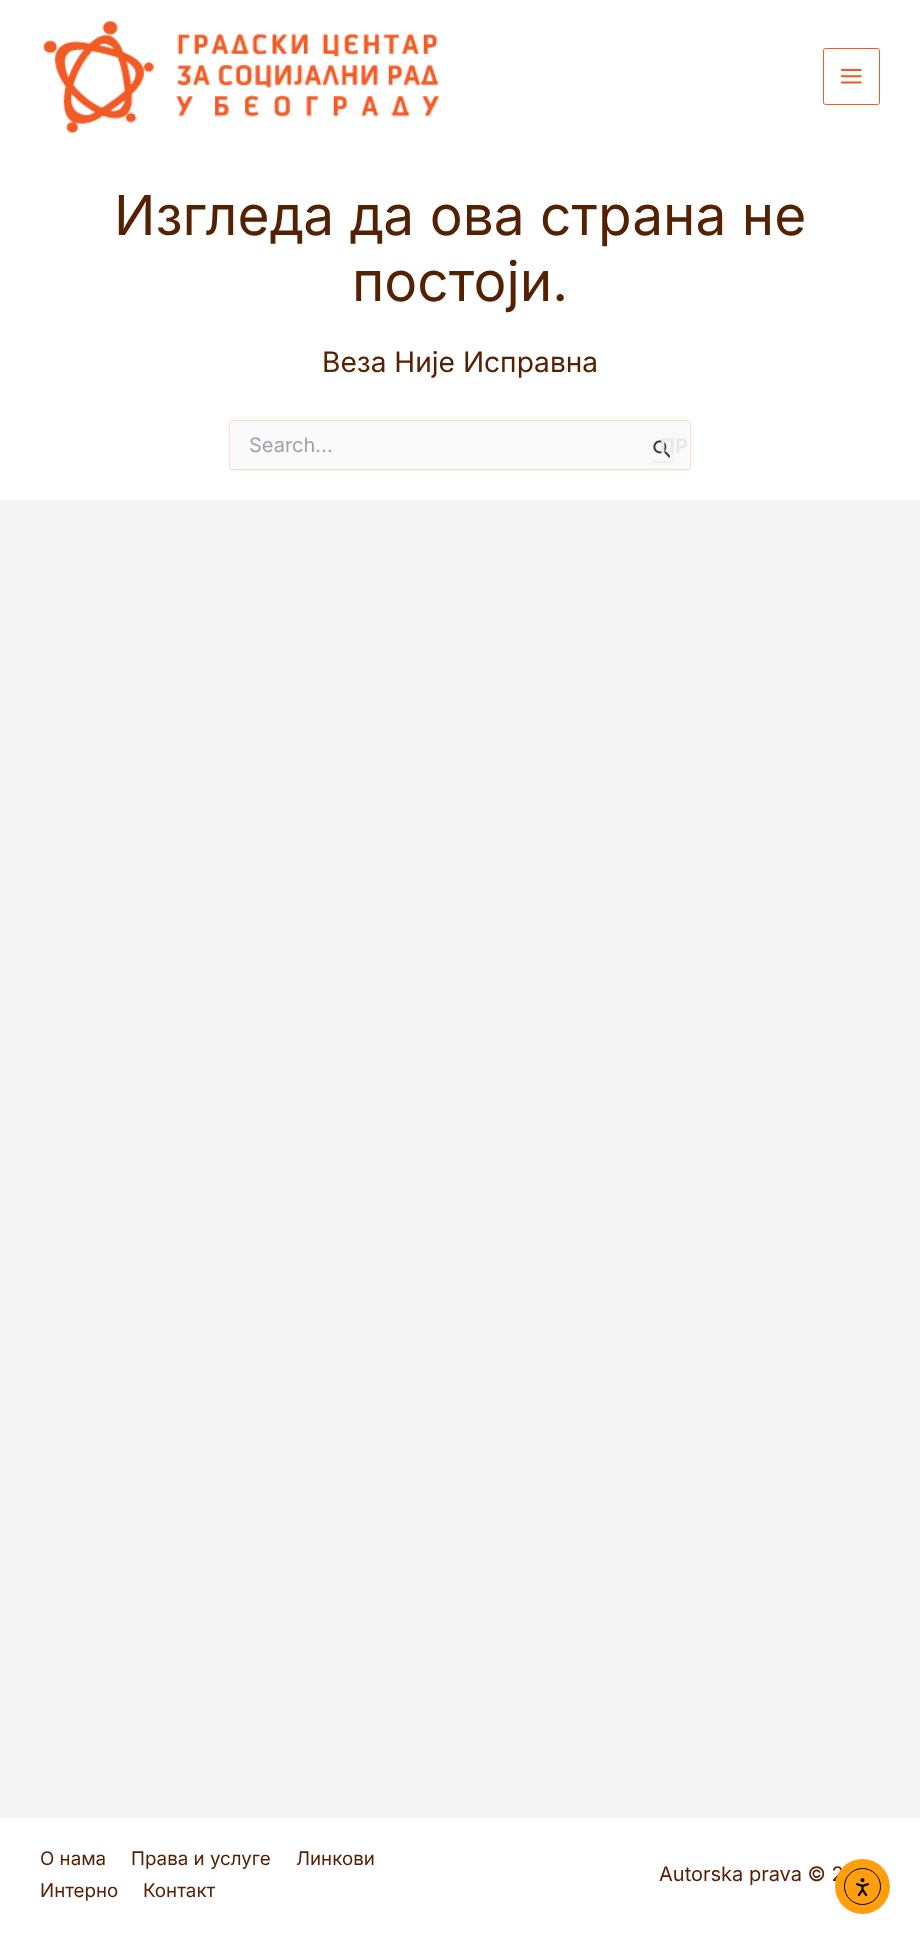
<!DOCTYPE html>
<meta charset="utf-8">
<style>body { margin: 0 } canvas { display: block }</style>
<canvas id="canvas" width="920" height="1943"></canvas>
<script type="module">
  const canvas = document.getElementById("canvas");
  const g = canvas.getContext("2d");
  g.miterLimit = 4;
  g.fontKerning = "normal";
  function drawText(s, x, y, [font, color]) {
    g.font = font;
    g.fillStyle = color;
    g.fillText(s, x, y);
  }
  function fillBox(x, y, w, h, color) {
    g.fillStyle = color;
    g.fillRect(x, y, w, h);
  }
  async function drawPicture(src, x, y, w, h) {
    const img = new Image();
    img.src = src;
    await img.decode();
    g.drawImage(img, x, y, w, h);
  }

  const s1 = ["55px Inter", "#552103"];
  const s2 = ["28.1px Inter", "#552103"];
  const s3 = ["20px Inter", "#9CA3AF"];
  const s4 = ["bold 20px Inter", "#EAE8E7"];
  const s5 = ["18.75px Inter", "#552103"];
  const s6 = ["20px Inter", "#552103"];

  fillBox(0, 0, 920, 1943, "#F5F5F5");
  fillBox(0, 0, 920, 500, "#FFFFFF");
  await drawPicture("pic1.png", 43, 21, 396, 112);
  g.beginPath();
  g.roundRect(823.5, 48.5, 56, 56, 2);
  g.strokeStyle = "#F15A24";
  g.stroke();
  await drawPicture("pic2.png", 840, 68, 22, 16);
  drawText("Изгледа да ова страна не", 114, 235, s1);
  drawText("постоји.", 352, 301, s1);
  drawText("Веза Није Исправна", 322, 372, s2);
  g.fillStyle = "rgba(0, 0, 0, 0.05)";
  g.filter = "blur(1px)";
  g.beginPath();
  g.roundRect(229, 421, 462, 50, 2.5);
  g.fill();
  g.filter = "none";
  g.fillStyle = "#FAFAFA";
  g.beginPath();
  g.roundRect(229.5, 420.5, 461, 49, 2);
  g.fill();
  g.strokeStyle = "#FFDCC0";
  g.stroke();
  drawText("Search...", 249, 452, s3);
  g.save();
  g.beginPath();
  g.moveTo(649, 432);
  g.lineTo(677, 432);
  g.lineTo(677, 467);
  g.lineTo(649, 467);
  g.closePath();
  g.moveTo(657, 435);
  g.lineTo(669, 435);
  g.bezierCurveTo(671, 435, 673, 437, 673, 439);
  g.lineTo(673, 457);
  g.bezierCurveTo(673, 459, 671, 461, 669, 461);
  g.lineTo(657, 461);
  g.bezierCurveTo(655, 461, 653, 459, 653, 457);
  g.lineTo(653, 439);
  g.bezierCurveTo(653, 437, 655, 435, 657, 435);
  g.closePath();
  g.clip("evenodd");
  g.fillStyle = "rgba(0, 0, 0, 0.05)";
  g.filter = "blur(1px)";
  g.beginPath();
  g.roundRect(653, 436, 20, 27, 4);
  g.fill();
  g.filter = "none";
  g.restore();
  await drawPicture("pic3.png", 653, 440, 17, 18);
  drawText("ПР", 660, 453, s4);
  fillBox(0, 1818, 920, 125, "#FFFFFF");
  drawText("О нама", 40, 1865, s5);
  drawText("Права и услуге", 131, 1865, s5);
  drawText("Линкови", 296, 1865, s5);
  drawText("Интерно", 40, 1897, s5);
  drawText("Контакт", 143, 1897, s5);
  drawText("Autorska prava © 2", 659, 1881, s6);
  g.fillStyle = "#FF9F0F";
  g.beginPath();
  g.arc(862.5, 1886.5, 27.5, 0, Math.PI * 2);
  g.fill();
  g.beginPath();
  g.arc(862.5, 1886.5, 18, 0, Math.PI * 2);
  g.strokeStyle = "#000000";
  g.stroke();
  await drawPicture("pic4.png", 856, 1878, 13, 19);
</script>
